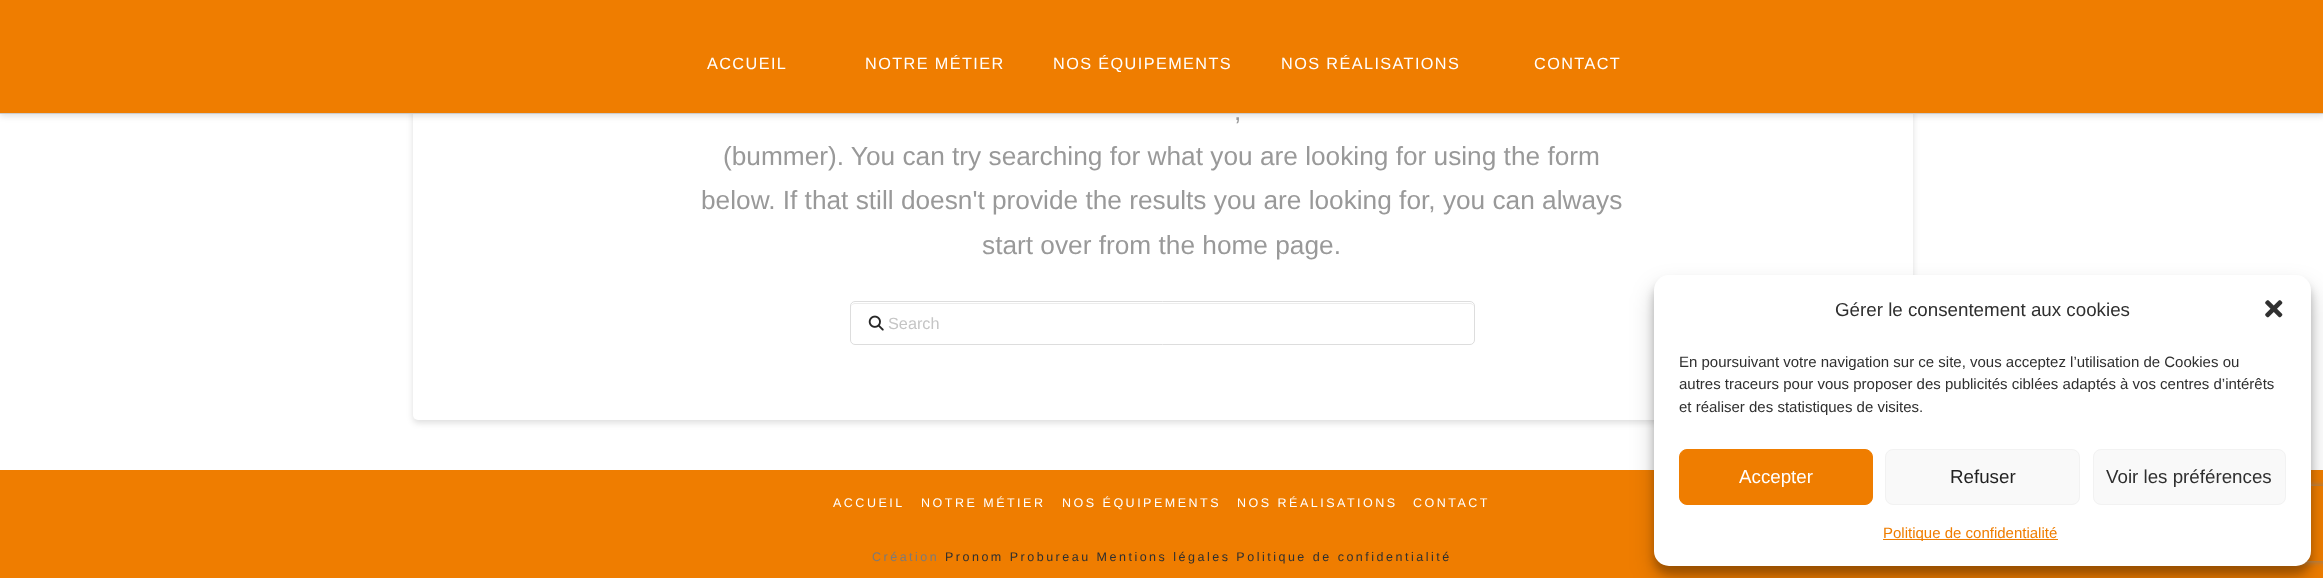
<!DOCTYPE html>
<meta charset="utf-8">
<style>body { margin: 0 } canvas { display: block }</style>
<canvas id="canvas" width="2323" height="578"></canvas>
<script type="module">
  const canvas = document.getElementById("canvas");
  const g = canvas.getContext("2d");
  g.miterLimit = 4;
  g.fontKerning = "normal";
  function drawText(s, x, y, [font, color]) {
    g.font = font;
    g.fillStyle = color;
    g.fillText(s, x, y);
  }
  function fillBox(x, y, w, h, color) {
    g.fillStyle = color;
    g.fillRect(x, y, w, h);
  }
  function fillRounded(x, y, w, h, r, color) {
    g.fillStyle = color;
    g.beginPath();
    g.roundRect(x, y, w, h, r);
    g.fill();
  }
  async function drawPicture(src, x, y, w, h) {
    const img = new Image();
    img.src = src;
    await img.decode();
    g.drawImage(img, x, y, w, h);
  }

  const s1 = ["16.25px Liberation Sans", "#FFFFFF"];
  const s2 = ["26.25px Liberation Sans", "#999999"];
  const s3 = ["16.25px Liberation Sans", "#C5C5C5"];
  const s4 = ["12.5px Liberation Sans", "#FFFFFF"];
  const s5 = ["12.5px Liberation Sans", "#7A7A7A"];
  const s6 = ["12.5px Liberation Sans", "#2F2F2F"];
  const s7 = ["18.75px Liberation Sans", "#2F2F2F"];
  const s8 = ["15px Liberation Sans", "#2F2F2F"];
  const s9 = ["18.75px Liberation Sans", "#FFFFFF"];
  const s10 = ["18.75px Liberation Sans", "#222222"];
  const s11 = ["15px Liberation Sans", "#EF7D00"];

  fillBox(0, 0, 2323, 578, "#FFFFFF");
  g.fillStyle = "rgba(0, 0, 0, 0.13)";
  g.filter = "blur(3px)";
  g.beginPath();
  g.roundRect(413, 16, 1500, 407, 5);
  g.fill();
  g.filter = "none";
  fillRounded(413, 14, 1500, 406, 5, "#FFFFFF");
  g.fillStyle = "rgba(0, 0, 0, 0.13)";
  g.filter = "blur(3px)";
  g.beginPath();
  g.rect(0, 3, 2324, 113);
  g.fill();
  g.filter = "none";
  fillBox(0, 0, 2323, 113, "#EF7D00");
  fillBox(0, 113, 2323, 1, "#CCCCCC");
  g.letterSpacing = "1.4px";
  drawText("ACCUEIL", 707, 69, s1);
  drawText("NOTRE MÉTIER", 865, 69, s1);
  drawText("NOS ÉQUIPEMENTS", 1053, 69, s1);
  drawText("NOS RÉALISATIONS", 1281, 69, s1);
  drawText("CONTACT", 1534, 69, s1);
  g.letterSpacing = "0px";
  drawText(",", 1234, 120, s2);
  drawText("(bummer). You can try searching for what you are looking for using the form", 723, 165, s2);
  drawText("below. If that still doesn't provide the results you are looking for, you can always", 701, 209, s2);
  drawText("start over from the home page.", 982, 254, s2);
  g.fillStyle = "#ECECEC";
  g.beginPath();
  g.moveTo(855, 304);
  g.lineTo(1470, 304);
  g.bezierCurveTo(1472, 304, 1474, 305, 1474, 308);
  g.lineTo(1474, 307);
  g.bezierCurveTo(1474, 305, 1472, 303, 1470, 303);
  g.lineTo(855, 303);
  g.bezierCurveTo(853, 303, 851, 305, 851, 307);
  g.lineTo(851, 308);
  g.bezierCurveTo(851, 305, 853, 304, 855, 304);
  g.closePath();
  g.fill();
  g.beginPath();
  g.roundRect(850.5, 301.5, 624, 43, 4.5);
  g.strokeStyle = "#DDDDDD";
  g.stroke();
  await drawPicture("pic1.png", 868, 315, 16, 16);
  drawText("Search", 888, 329, s3);
  fillBox(0, 470, 2323, 108, "#EF7D00");
  g.letterSpacing = "2.5px";
  drawText("ACCUEIL", 833, 507, s4);
  drawText("NOTRE MÉTIER", 921, 507, s4);
  drawText("NOS ÉQUIPEMENTS", 1062, 507, s4);
  drawText("NOS RÉALISATIONS", 1237, 507, s4);
  drawText("CONTACT", 1413, 507, s4);
  drawText("Création", 872, 561, s5);
  drawText("Pronom Probureau Mentions légales Politique de confidentialité", 945, 561, s6);
  g.fillStyle = "rgba(0, 0, 0, 0.23)";
  g.filter = "blur(4px)";
  g.beginPath();
  g.roundRect(1654, 283, 657, 291, 15);
  g.fill();
  g.filter = "none";
  g.fillStyle = "rgba(0, 0, 0, 0.19)";
  g.filter = "blur(12.5px)";
  g.beginPath();
  g.roundRect(1654, 288, 657, 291, 15);
  g.fill();
  g.filter = "none";
  g.save();
  g.beginPath();
  g.moveTo(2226, 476);
  g.lineTo(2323, 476);
  g.lineTo(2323, 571);
  g.lineTo(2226, 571);
  g.closePath();
  g.moveTo(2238.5, 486);
  g.lineTo(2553.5, 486);
  g.bezierCurveTo(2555, 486, 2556, 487, 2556, 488.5);
  g.lineTo(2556, 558.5);
  g.bezierCurveTo(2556, 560, 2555, 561, 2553.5, 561);
  g.lineTo(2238.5, 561);
  g.bezierCurveTo(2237, 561, 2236, 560, 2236, 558.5);
  g.lineTo(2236, 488.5);
  g.bezierCurveTo(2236, 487, 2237, 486, 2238.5, 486);
  g.closePath();
  g.clip("evenodd");
  g.fillStyle = "#808080";
  g.filter = "blur(3px)";
  g.beginPath();
  g.roundRect(2236, 486, 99, 75, 2.5);
  g.fill();
  g.filter = "none";
  g.restore();
  fillRounded(1654, 275, 657, 291, 15, "#FFFFFF");
  g.letterSpacing = "0px";
  drawText("Gérer le consentement aux cookies", 1835, 316, s7);
  await drawPicture("pic2.png", 2265, 300, 18, 18);
  drawText("En poursuivant votre navigation sur ce site, vous acceptez l’utilisation de Cookies ou", 1679, 367, s8);
  drawText("autres traceurs pour vous proposer des publicités ciblées adaptés à vos centres d’intérêts", 1679, 389, s8);
  drawText("et réaliser des statistiques de visites.", 1679, 412, s8);
  g.fillStyle = "#EF7D00";
  g.beginPath();
  g.roundRect(1679.5, 449.5, 193, 55, 7.5);
  g.fill();
  g.strokeStyle = "#EF7D00";
  g.stroke();
  drawText("Accepter", 1739, 483, s9);
  g.fillStyle = "#F9F9F9";
  g.beginPath();
  g.roundRect(1885.5, 449.5, 194, 55, 7.5);
  g.fill();
  g.strokeStyle = "#F2F2F2";
  g.stroke();
  drawText("Refuser", 1950, 483, s10);
  g.fillStyle = "#F9F9F9";
  g.beginPath();
  g.roundRect(2093.5, 449.5, 192, 55, 7.5);
  g.fill();
  g.stroke();
  drawText("Voir les préférences", 2106, 483, s7);
  fillBox(1883, 539, 175, 1, "#EF7D00");
  drawText("Politique de confidentialité", 1883, 538, s11);
</script>
